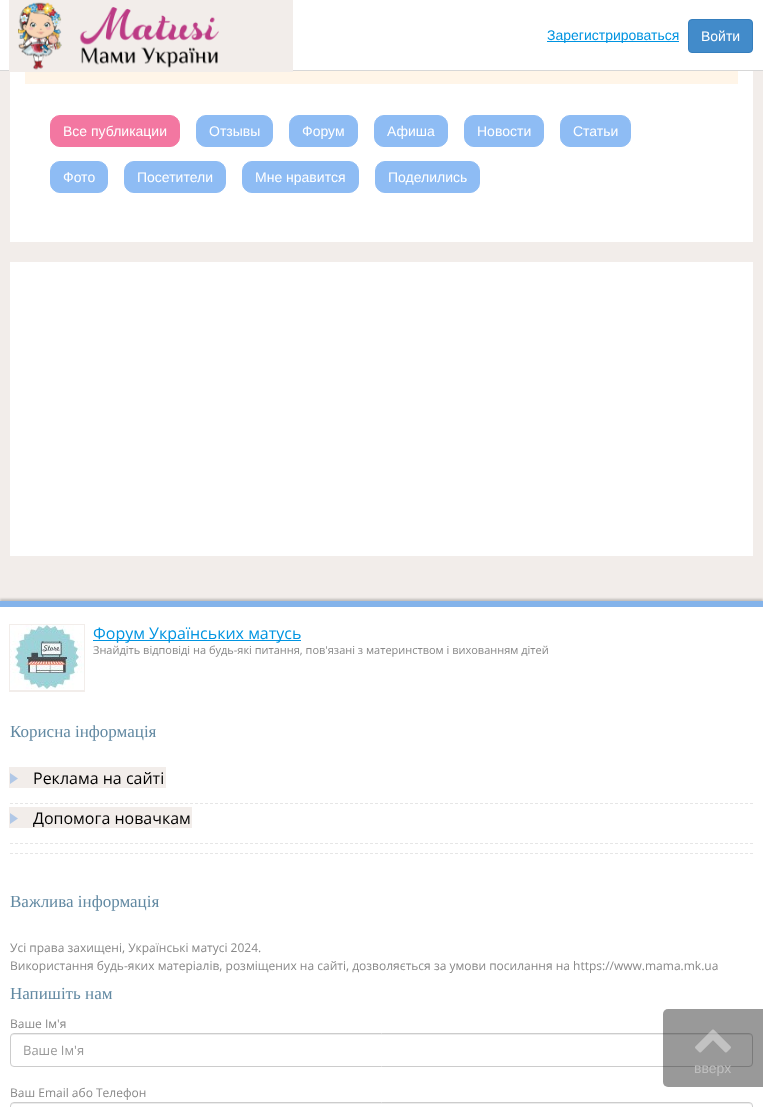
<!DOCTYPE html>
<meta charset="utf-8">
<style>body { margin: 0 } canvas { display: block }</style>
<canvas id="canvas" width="763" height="1107"></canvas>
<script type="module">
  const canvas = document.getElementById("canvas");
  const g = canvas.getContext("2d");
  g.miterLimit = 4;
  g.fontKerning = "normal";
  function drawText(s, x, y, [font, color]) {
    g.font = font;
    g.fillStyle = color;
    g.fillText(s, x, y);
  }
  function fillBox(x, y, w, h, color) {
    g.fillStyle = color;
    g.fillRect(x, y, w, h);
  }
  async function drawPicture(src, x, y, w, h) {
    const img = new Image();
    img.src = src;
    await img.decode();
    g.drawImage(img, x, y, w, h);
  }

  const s1 = ["14px Liberation Sans", "#0094E1"];
  const s2 = ["14px Liberation Sans", "#FFFFFF"];
  const s3 = ["16px Open Sans", "#0094E1"];
  const s4 = ["11px Open Sans", "#888888"];
  const s5 = ["17px Liberation Serif", "#6289A2"];
  const s6 = ["16px Open Sans", "#000000"];
  const s7 = ["12px Open Sans", "#888888"];
  const s8 = ["13px Open Sans", "#999999"];
  const s9 = ["14px Liberation Sans", "#BFBFBF"];

  fillBox(0, 0, 763, 1107, "#F2EDEA");
  fillBox(25, 71, 713, 13, "#FFF5E8");
  g.strokeStyle = "#FFFFFF";
  g.lineWidth = 15;
  g.strokeRect(17.5, 30.5, 728, 61);
  g.fillStyle = "rgba(0, 0, 0, 0.5)";
  g.filter = "blur(0.5px)";
  g.beginPath();
  g.rect(0, 0, 763, 71);
  g.fill();
  g.filter = "none";
  fillBox(0, 0, 763, 70, "#FFFFFF");
  fillBox(0, 70, 763, 1, "#D7D7D7");
  await drawPicture("pic1.png", 9, 0, 284, 72);
  fillBox(547, 41, 132, 1, "#0094E1");
  drawText("Зарегистрироваться", 547, 40, s1);
  g.fillStyle = "#428BCA";
  g.beginPath();
  g.roundRect(688.5, 19.5, 64, 33, 3.5);
  g.fill();
  g.strokeStyle = "#357EBD";
  g.lineWidth = 1;
  g.stroke();
  drawText("Войти", 701, 41, s2);
  fillBox(10, 99, 743, 143, "#FFFFFF");
  g.fillStyle = "#F377A1";
  g.beginPath();
  g.roundRect(50.5, 115.5, 129, 31, 9.5);
  g.fill();
  g.strokeStyle = "#F377A1";
  g.stroke();
  drawText("Все публикации", 63, 136, s2);
  g.fillStyle = "#8EBCF4";
  g.beginPath();
  g.roundRect(196.5, 115.5, 76, 31, 9.5);
  g.fill();
  g.strokeStyle = "#8EBCF4";
  g.stroke();
  drawText("Отзывы", 209, 136, s2);
  g.fillStyle = "#8EBCF4";
  g.beginPath();
  g.roundRect(289.5, 115.5, 68, 31, 9.5);
  g.fill();
  g.stroke();
  drawText("Форум", 302, 136, s2);
  g.fillStyle = "#8EBCF4";
  g.beginPath();
  g.roundRect(374.5, 115.5, 73, 31, 9.5);
  g.fill();
  g.stroke();
  drawText("Афиша", 387, 136, s2);
  g.fillStyle = "#8EBCF4";
  g.beginPath();
  g.roundRect(464.5, 115.5, 79, 31, 9.5);
  g.fill();
  g.stroke();
  drawText("Новости", 477, 136, s2);
  g.fillStyle = "#8EBCF4";
  g.beginPath();
  g.roundRect(560.5, 115.5, 70, 31, 9.5);
  g.fill();
  g.stroke();
  drawText("Статьи", 573, 136, s2);
  g.fillStyle = "#8EBCF4";
  g.beginPath();
  g.roundRect(50.5, 161.5, 57, 31, 9.5);
  g.fill();
  g.stroke();
  drawText("Фото", 63, 182, s2);
  g.fillStyle = "#8EBCF4";
  g.beginPath();
  g.roundRect(124.5, 161.5, 101, 31, 9.5);
  g.fill();
  g.stroke();
  drawText("Посетители", 137, 182, s2);
  g.fillStyle = "#8EBCF4";
  g.beginPath();
  g.roundRect(242.5, 161.5, 116, 31, 9.5);
  g.fill();
  g.stroke();
  drawText("Мне нравится", 255, 182, s2);
  g.fillStyle = "#8EBCF4";
  g.beginPath();
  g.roundRect(375.5, 161.5, 104, 31, 9.5);
  g.fill();
  g.stroke();
  drawText("Поделились", 388, 182, s2);
  fillBox(10, 262, 743, 294, "#FFFFFF");
  fillBox(0, 607, 763, 500, "#FFFFFF");
  g.fillStyle = "rgba(0, 0, 0, 0.2)";
  g.filter = "blur(1px)";
  g.beginPath();
  g.rect(0, 599, 763, 6);
  g.fill();
  g.filter = "none";
  fillBox(0, 601, 763, 6, "#84B3EA");
  await drawPicture("pic2.png", 9, 624, 76, 68);
  fillBox(93, 640, 208, 1, "#0094E1");
  drawText("Форум Українських матусь", 93, 639, s3);
  drawText("Знайдіть відповіді на будь-які питання, пов'язані з материнством і вихованням дітей", 93, 654, s4);
  drawText("Корисна інформація", 10, 737, s5);
  await drawPicture("pic3.png", 9, 767, 157, 21);
  drawText("Реклама на сайті", 33, 784, s6);
  g.beginPath();
  g.moveTo(10, 803.5);
  g.lineTo(753, 803.5);
  g.strokeStyle = "#E6E6E6";
  g.setLineDash([3, 2]);
  g.stroke();
  await drawPicture("pic4.png", 9, 807, 183, 21);
  drawText("Допомога новачкам", 33, 824, s6);
  g.beginPath();
  g.moveTo(10, 843.5);
  g.lineTo(753, 843.5);
  g.stroke();
  g.beginPath();
  g.moveTo(10, 853.5);
  g.lineTo(753, 853.5);
  g.stroke();
  drawText("Важлива інформація", 10, 907, s5);
  drawText("Усі права захищені, Українські матусі 2024.", 10, 952, s7);
  drawText("Використання будь-яких матеріалів, розміщених на сайті, дозволяється за умови посилання на https://www.mama.mk.ua", 10, 970, s7);
  drawText("Напишіть нам", 10, 999, s5);
  drawText("Ваше Ім'я", 10, 1028, s7);
  g.fillStyle = "#ECECEC";
  g.beginPath();
  g.moveTo(14, 1035);
  g.lineTo(749, 1035);
  g.bezierCurveTo(751, 1035, 752, 1036, 752, 1038);
  g.bezierCurveTo(752, 1036, 751, 1034, 749, 1034);
  g.lineTo(14, 1034);
  g.bezierCurveTo(12, 1034, 11, 1036, 11, 1038);
  g.bezierCurveTo(11, 1036, 12, 1035, 14, 1035);
  g.closePath();
  g.fill();
  g.beginPath();
  g.roundRect(10.5, 1033.5, 742, 33, 3.5);
  g.strokeStyle = "#CCCCCC";
  g.setLineDash([]);
  g.stroke();
  drawText("Ваше Ім'я", 23, 1055, s8);
  drawText("Ваш Email або Телефон", 10, 1097, s7);
  g.fillStyle = "#ECECEC";
  g.beginPath();
  g.moveTo(14, 1104);
  g.lineTo(749, 1104);
  g.bezierCurveTo(751, 1104, 752, 1105, 752, 1107);
  g.bezierCurveTo(752, 1105, 751, 1103, 749, 1103);
  g.lineTo(14, 1103);
  g.bezierCurveTo(12, 1103, 11, 1105, 11, 1107);
  g.bezierCurveTo(11, 1105, 12, 1104, 14, 1104);
  g.closePath();
  g.fill();
  g.beginPath();
  g.roundRect(10.5, 1102.5, 742, 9, 3.5);
  g.stroke();
  g.fillStyle = "rgba(0, 0, 0, 0.4)";
  g.beginPath();
  g.roundRect(663, 1009, 100, 78, [5, 0, 0, 5]);
  g.fill();
  await drawPicture("pic5.png", 695, 1029, 36, 24);
  drawText("вверх", 694, 1073, s9);
</script>
